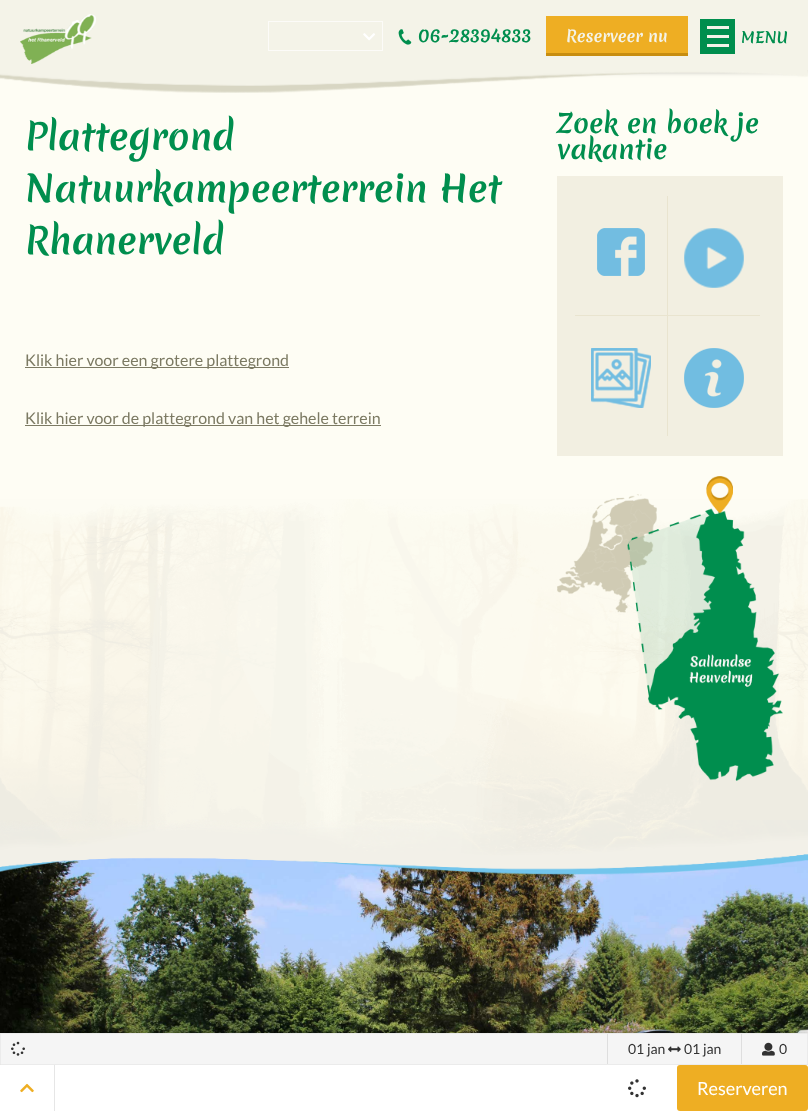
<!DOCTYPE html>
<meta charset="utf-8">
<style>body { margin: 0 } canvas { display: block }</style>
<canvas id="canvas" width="808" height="1111"></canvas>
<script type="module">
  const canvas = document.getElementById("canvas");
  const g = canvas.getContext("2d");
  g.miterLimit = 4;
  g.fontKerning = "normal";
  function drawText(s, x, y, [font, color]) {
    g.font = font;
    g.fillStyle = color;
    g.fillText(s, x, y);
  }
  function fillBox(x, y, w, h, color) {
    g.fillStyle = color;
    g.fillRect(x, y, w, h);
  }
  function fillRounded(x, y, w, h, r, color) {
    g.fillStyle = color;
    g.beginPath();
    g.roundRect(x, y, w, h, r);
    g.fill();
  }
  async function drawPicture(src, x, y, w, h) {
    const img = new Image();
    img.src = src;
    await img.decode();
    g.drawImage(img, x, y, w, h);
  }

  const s1 = ["bold 18px Merienda", "#008E4E"];
  const s2 = ["bold 16px Merienda", "#F4F3E8"];
  const s3 = ["bold 15px Merienda", "#008E4E"];
  const s4 = ["bold 36px Merienda", "#008E4E"];
  const s5 = ["16px Lato", "#7C7A63"];
  const s6 = ["bold 26px Merienda", "#008E4E"];
  const s7 = ["14px Lato", "#323232"];
  const s8 = ["18px Lato", "#FFFFFF"];

  fillBox(0, 0, 808, 1111, "#FEFDF4");
  g.fillStyle = "rgba(0, 0, 0, 0.3)";
  g.filter = "blur(2.5px)";
  g.beginPath();
  g.rect(0, 2, 808, 70);
  g.fill();
  g.filter = "none";
  fillBox(0, 0, 808, 70, "#F4F3E8");
  g.strokeStyle = "#FCFBF8";
  g.strokeRect(268.5, 21.5, 114, 29);
  await drawPicture("pic1.png", 363, 33, 12, 8);
  await drawPicture("pic2.png", 398, 29, 14, 16);
  drawText("06-28394833", 418, 42, s1);
  fillBox(546, 16, 142, 37, "#EEAE23");
  fillBox(546, 53, 142, 3, "#C78D10");
  drawText("Reserveer nu", 566, 42, s2);
  await drawPicture("pic3.png", 20, 14, 76, 50);
  fillBox(700, 19, 35, 35, "#008E4E");
  fillBox(707, 26, 22, 3, "#F4F3E8");
  fillBox(707, 35, 22, 3, "#F4F3E8");
  fillBox(707, 44, 22, 3, "#F4F3E8");
  drawText("MENU", 741, 43, s3);
  await drawPicture("pic4.png", 0, 70, 808, 23);
  await drawPicture("pic5.png", 0, 499, 808, 336);
  drawText("Plattegrond", 25, 150, s4);
  drawText("Natuurkampeerterrein Het", 25, 202, s4);
  drawText("Rhanerveld", 25, 254, s4);
  fillBox(25, 367, 264, 1, "#7C7A63");
  drawText("Klik hier voor een grotere plattegrond", 25, 366, s5);
  fillBox(25, 425, 356, 1, "#7C7A63");
  drawText("Klik hier voor de plattegrond van het gehele terrein", 25, 424, s5);
  drawText("Zoek en boek je", 557, 133, s6);
  drawText("vakantie", 557, 159, s6);
  fillBox(557, 176, 226, 280, "#F2EFE1");
  fillBox(667, 196, 1, 240, "#E9E4CF");
  fillBox(575, 315, 185, 1, "#E9E4CF");
  await drawPicture("pic6.png", 597, 228, 48, 48);
  await drawPicture("pic7.png", 684, 228, 60, 60);
  await drawPicture("pic8.png", 591, 348, 60, 60);
  await drawPicture("pic9.png", 684, 348, 60, 60);
  await drawPicture("pic10.png", 557, 476, 226, 305);
  await drawPicture("pic12.png", 0, 857, 808, 176);
  await drawPicture("pic11.png", 0, 820, 808, 55);
  g.fillStyle = "rgba(0, 0, 0, 0.2)";
  g.filter = "blur(2.5px)";
  g.beginPath();
  g.rect(-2, 1031, 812, 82);
  g.fill();
  g.filter = "none";
  g.fillStyle = "#F5F5F5";
  g.beginPath();
  g.rect(0.5, 1033.5, 807, 31);
  g.fill();
  g.strokeStyle = "#EBEBEB";
  g.stroke();
  await drawPicture("pic13.png", 11, 1041, 14, 15);
  fillBox(741, 1034, 1, 30, "#DEDEDE");
  fillBox(607, 1034, 1, 30, "#DEDEDE");
  drawText("01 jan", 628, 1054, s7);
  await drawPicture("pic14.png", 668, 1046, 13, 6);
  drawText("01 jan", 684, 1054, s7);
  await drawPicture("pic15.png", 762, 1042, 13, 14);
  drawText("0", 779, 1054, s7);
  fillBox(0, 1065, 808, 46, "#FFFFFF");
  fillBox(54, 1065, 1, 46, "#E6E6E6");
  await drawPicture("pic16.png", 20, 1083, 14, 10);
  await drawPicture("pic17.png", 628, 1079, 18, 19);
  fillRounded(677, 1065, 131, 46, 3, "#EEAE23");
  drawText("Reserveren", 697, 1095, s8);
</script>
